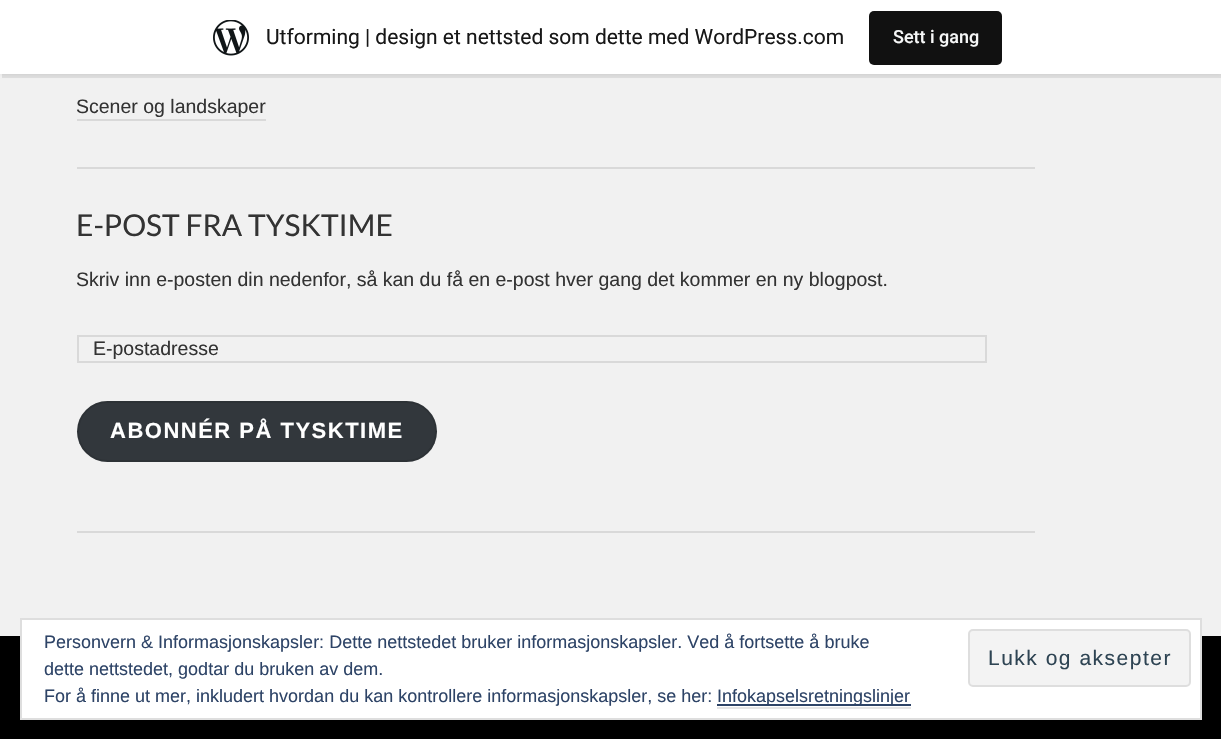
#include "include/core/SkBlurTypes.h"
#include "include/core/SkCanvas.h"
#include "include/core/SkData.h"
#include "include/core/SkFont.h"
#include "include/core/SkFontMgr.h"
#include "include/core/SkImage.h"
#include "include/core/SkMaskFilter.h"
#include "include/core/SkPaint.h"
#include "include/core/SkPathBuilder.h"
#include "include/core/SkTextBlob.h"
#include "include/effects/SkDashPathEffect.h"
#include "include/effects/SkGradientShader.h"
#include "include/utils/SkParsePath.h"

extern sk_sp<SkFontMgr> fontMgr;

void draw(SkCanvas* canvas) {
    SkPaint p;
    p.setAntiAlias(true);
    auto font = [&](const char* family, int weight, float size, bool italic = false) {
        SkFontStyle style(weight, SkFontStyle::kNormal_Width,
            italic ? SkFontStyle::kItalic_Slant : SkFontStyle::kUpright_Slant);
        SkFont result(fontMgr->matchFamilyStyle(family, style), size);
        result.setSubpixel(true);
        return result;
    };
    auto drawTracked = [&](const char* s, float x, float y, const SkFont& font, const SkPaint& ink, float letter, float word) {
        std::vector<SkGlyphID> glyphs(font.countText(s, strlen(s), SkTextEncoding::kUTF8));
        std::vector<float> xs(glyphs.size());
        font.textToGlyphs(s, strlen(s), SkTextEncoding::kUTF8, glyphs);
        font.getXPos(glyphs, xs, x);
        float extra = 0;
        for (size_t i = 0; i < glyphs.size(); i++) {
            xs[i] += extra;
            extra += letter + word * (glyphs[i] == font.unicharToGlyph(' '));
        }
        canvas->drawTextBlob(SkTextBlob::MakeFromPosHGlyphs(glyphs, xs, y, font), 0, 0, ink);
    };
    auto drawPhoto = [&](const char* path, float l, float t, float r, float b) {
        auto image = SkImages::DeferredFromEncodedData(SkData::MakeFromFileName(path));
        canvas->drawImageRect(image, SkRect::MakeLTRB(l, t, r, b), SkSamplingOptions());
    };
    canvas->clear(0xFFF1F1F1);
    p.setColor(0x0D000000);
    p.setMaskFilter(SkMaskFilter::MakeBlur(kNormal_SkBlurStyle, 1.5f));
    canvas->drawRect(SkRect::MakeLTRB(0, 2, 1221, 75), p);
    p.setMaskFilter(nullptr);
    p.setColor(0x14000000);
    canvas->drawPath(SkPathBuilder().moveTo(2, 74).lineTo(2, 78).lineTo(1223, 78).lineTo(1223, 5).lineTo(1221, 5).lineTo(1221, 74).close().detach(), p);
    p.setColor(0xFFFFFFFF);
    canvas->drawRect(SkRect::MakeLTRB(0, 0, 1221, 74), p);
    drawPhoto("media/1.png", 213, 20, 249, 56);
    auto font1 = font("Roboto", 400, 21);
    p.setColor(0xFF171717);
    canvas->drawString("Utforming | design et nettsted som dette med WordPress.com", 266, 44, font1, p);
    p.setColor(0xFF111111);
    canvas->drawRoundRect(SkRect::MakeLTRB(869, 11, 1002, 65), 5, 5, p);
    auto font2 = font("Roboto", 500, 18);
    p.setColor(0xFFF6F7F7);
    canvas->drawString("Sett i gang", 893, 43, font2, p);
    p.setColor(0xFFD9D9D9);
    canvas->drawRect(SkRect::MakeLTRB(77, 167, 1035, 169), p);
    auto font3 = font("Liberation Sans", 400, 19.5f);
    p.setColor(0xFF333333);
    canvas->drawString("Scener og landskaper", 76, 113, font3, p);
    p.setColor(0xFFD9D9D9);
    canvas->drawRect(SkRect::MakeLTRB(77, 119, 266, 121), p);
    canvas->drawRect(SkRect::MakeLTRB(77, 531, 1035, 533), p);
    auto font4 = font("Lato", 400, 30);
    p.setColor(0xFF333333);
    canvas->drawString("E-POST FRA TYSKTIME", 76, 236, font4, p);
    canvas->drawString("Skriv inn e-posten din nedenfor, så kan du få en e-post hver gang det kommer en ny blogpost.", 76, 286, font3, p);
    p.setStyle(SkPaint::kStroke_Style);
    p.setStrokeWidth(2);
    p.setColor(0xFFD9D9D9);
    canvas->drawRect(SkRect::MakeLTRB(78, 336, 986, 362), p);
    p.setStyle(SkPaint::kFill_Style);
    p.setColor(0xFF333333);
    canvas->drawString("E-postadresse", 93, 355, font3, p);
    p.setColor(0xFF32373C);
    canvas->drawRoundRect(SkRect::MakeLTRB(77, 401, 437, 462), 30.5f, 30.5f, p);
    p.setStyle(SkPaint::kStroke_Style);
    p.setColor(0x1A000000);
    canvas->drawRoundRect(SkRect::MakeLTRB(78, 402, 436, 461), 29.5f, 29.5f, p);
    auto font5 = font("Liberation Sans", 700, 22);
    p.setStyle(SkPaint::kFill_Style);
    p.setColor(0xFFFFFFFF);
    drawTracked("ABONNÉR PÅ TYSKTIME", 110, 438, font5, p, 1.5f, 0);
    p.setColor(0xFF000000);
    canvas->drawRect(SkRect::MakeLTRB(0, 636, 1221, 739), p);
    p.setColor(0xFFFFFFFF);
    canvas->drawRect(SkRect::MakeLTRB(21, 619, 1201, 719), p);
    p.setStyle(SkPaint::kStroke_Style);
    p.setColor(0xFFDEDEDE);
    canvas->drawRect(SkRect::MakeLTRB(21, 619, 1201, 719), p);
    auto font6 = font("Liberation Sans", 400, 18);
    p.setStyle(SkPaint::kFill_Style);
    p.setColor(0xFF2E4467);
    canvas->drawString("Personvern & Informasjonskapsler: Dette nettstedet bruker informasjonskapsler. Ved å fortsette å bruke", 44, 648, font6, p);
    canvas->drawString("dette nettstedet, godtar du bruken av dem.", 44, 675, font6, p);
    p.setColor(0xFFF3F3F3);
    canvas->drawRoundRect(SkRect::MakeLTRB(969, 630, 1190, 686), 4, 4, p);
    p.setStyle(SkPaint::kStroke_Style);
    p.setColor(0xFFDEDEDE);
    canvas->drawRoundRect(SkRect::MakeLTRB(969, 630, 1190, 686), 4, 4, p);
    auto font7 = font("Liberation Sans", 400, 21);
    p.setStyle(SkPaint::kFill_Style);
    p.setColor(0xFF2E4453);
    drawTracked("Lukk og aksepter", 988, 665, font7, p, 1.5f, 0);
    p.setColor(0xFF2E4467);
    canvas->drawString("For å finne ut mer, inkludert hvordan du kan kontrollere informasjonskapsler, se her:", 44, 702, font6, p);
    canvas->drawRect(SkRect::MakeLTRB(717, 704, 911, 706), p);
    canvas->drawString("Infokapselsretningslinjer", 717, 702, font6, p);
    p.setColor(0xFFE6E6E6);
    canvas->drawRect(SkRect::MakeLTRB(717, 707, 911, 709), p);
}
